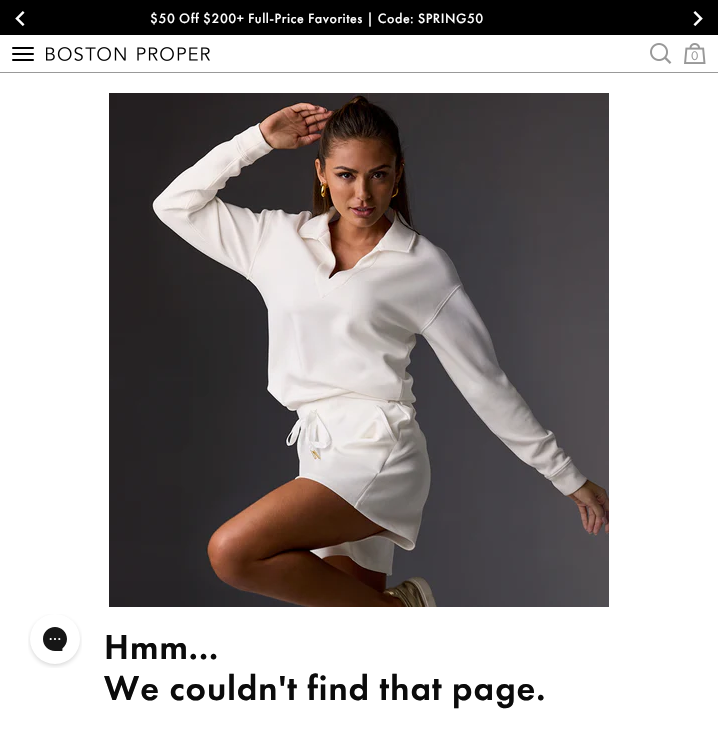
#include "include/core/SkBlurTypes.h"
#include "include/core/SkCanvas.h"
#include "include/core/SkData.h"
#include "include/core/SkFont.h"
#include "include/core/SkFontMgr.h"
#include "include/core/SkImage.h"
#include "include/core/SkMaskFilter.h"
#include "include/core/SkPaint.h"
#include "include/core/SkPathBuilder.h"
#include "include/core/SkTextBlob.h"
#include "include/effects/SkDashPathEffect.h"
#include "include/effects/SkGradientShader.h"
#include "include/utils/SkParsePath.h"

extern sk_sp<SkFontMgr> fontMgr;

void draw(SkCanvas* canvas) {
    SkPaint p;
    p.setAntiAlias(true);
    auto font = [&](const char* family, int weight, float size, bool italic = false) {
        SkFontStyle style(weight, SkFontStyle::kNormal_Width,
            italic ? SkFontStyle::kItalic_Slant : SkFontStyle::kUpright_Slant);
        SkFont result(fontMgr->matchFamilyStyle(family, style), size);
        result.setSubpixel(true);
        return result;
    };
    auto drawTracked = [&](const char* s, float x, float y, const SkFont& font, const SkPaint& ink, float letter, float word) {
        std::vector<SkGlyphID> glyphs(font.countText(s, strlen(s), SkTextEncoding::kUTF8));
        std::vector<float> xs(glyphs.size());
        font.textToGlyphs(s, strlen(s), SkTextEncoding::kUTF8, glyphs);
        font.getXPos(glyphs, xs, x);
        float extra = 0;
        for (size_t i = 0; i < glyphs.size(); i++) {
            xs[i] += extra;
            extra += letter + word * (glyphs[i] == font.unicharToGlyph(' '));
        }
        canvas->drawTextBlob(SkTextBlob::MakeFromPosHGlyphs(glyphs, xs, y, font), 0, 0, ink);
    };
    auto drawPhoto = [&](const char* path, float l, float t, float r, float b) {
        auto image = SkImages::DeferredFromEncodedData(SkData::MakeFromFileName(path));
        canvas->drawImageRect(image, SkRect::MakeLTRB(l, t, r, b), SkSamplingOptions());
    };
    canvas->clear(0xFFFFFFFF);
    drawPhoto("media/1.png", 28, 614, 82, 668);
    p.setColor(0xFF000000);
    canvas->drawRect(SkRect::MakeLTRB(0, 0, 718, 35), p);
    drawPhoto("media/2.png", 15, 11, 25, 26);
    drawPhoto("media/3.png", 693, 11, 703, 26);
    auto font1 = font("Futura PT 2", 500, 14);
    p.setColor(0xFFFFFFFF);
    drawTracked("$50 Off $200+ Full-Price Favorites | Code: SPRING50", 150, 23, font1, p, 0.5f, 0);
    p.setColor(0xFF999999);
    canvas->drawRect(SkRect::MakeLTRB(0, 72, 718, 73), p);
    p.setColor(0xFF000000);
    canvas->drawRoundRect(SkRect::MakeLTRB(12, 53, 34, 55), 1, 1, p);
    canvas->drawRoundRect(SkRect::MakeLTRB(12, 47, 34, 49), 1, 1, p);
    canvas->drawRoundRect(SkRect::MakeLTRB(12, 59, 34, 61), 1, 1, p);
    drawPhoto("media/4.png", 46, 47, 210, 61);
    drawPhoto("media/5.png", 650, 43, 672, 64);
    drawPhoto("media/6.png", 684, 43, 706, 64);
    auto font2 = font("Futura PT", 400, 13);
    p.setColor(0xFF999999);
    canvas->drawString("0", 691, 60, font2, p);
    drawPhoto("media/7.png", 109, 93, 609, 607);
    auto font3 = font("Futura PT", 500, 36);
    p.setColor(0xFF0B0B0B);
    drawTracked("Hmm...", 104, 659, font3, p, 1, 0);
    drawTracked("We couldn't find that page.", 104, 700, font3, p, 1, 0);
}
